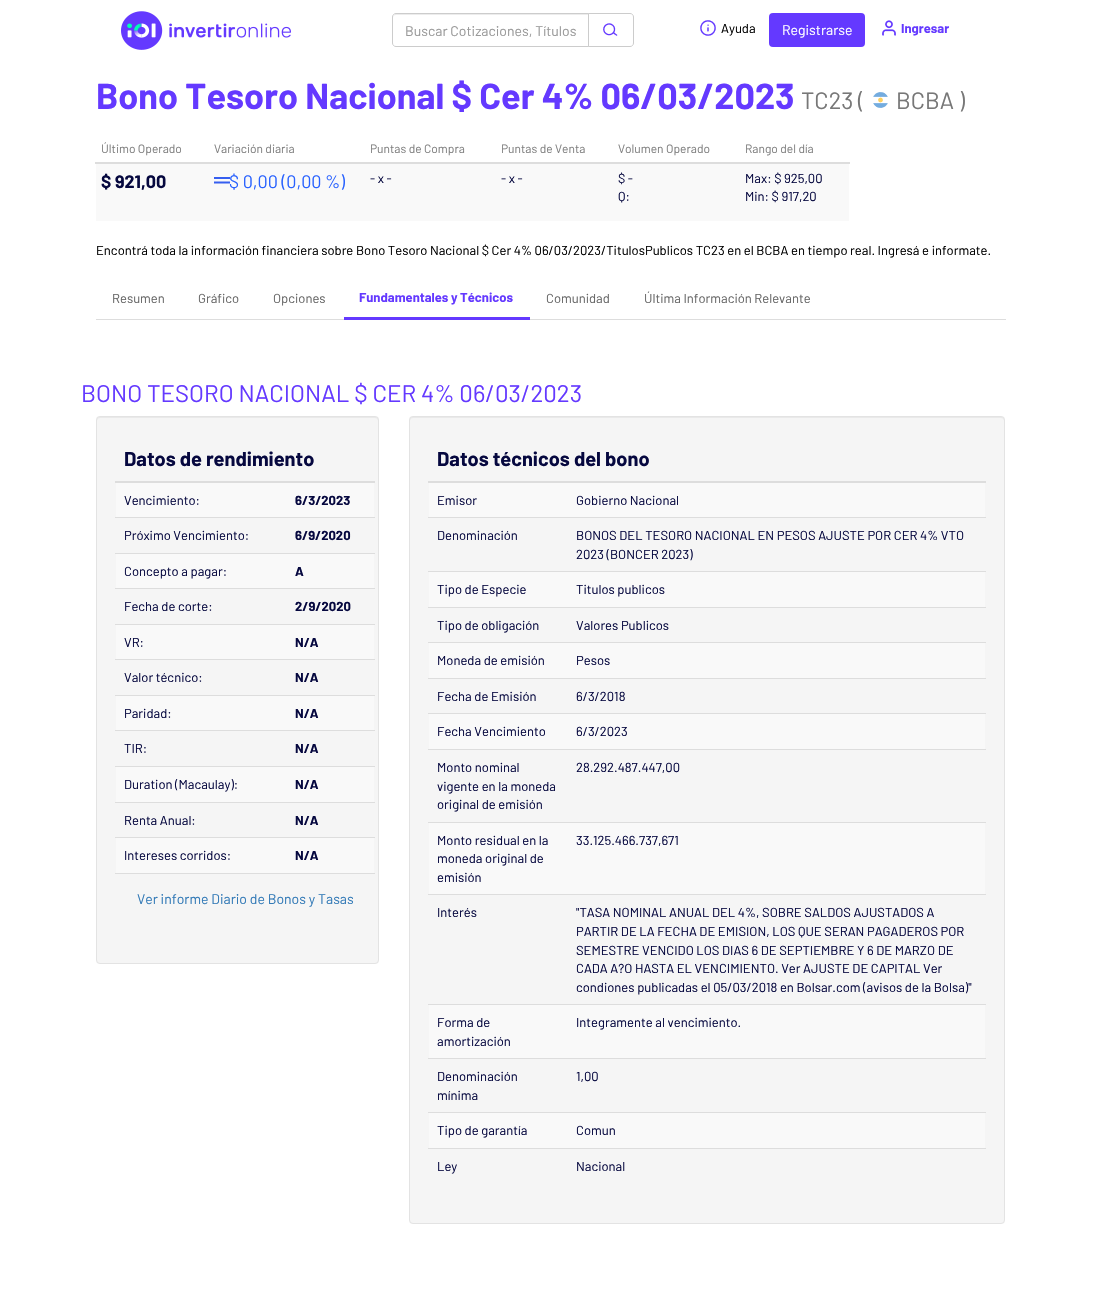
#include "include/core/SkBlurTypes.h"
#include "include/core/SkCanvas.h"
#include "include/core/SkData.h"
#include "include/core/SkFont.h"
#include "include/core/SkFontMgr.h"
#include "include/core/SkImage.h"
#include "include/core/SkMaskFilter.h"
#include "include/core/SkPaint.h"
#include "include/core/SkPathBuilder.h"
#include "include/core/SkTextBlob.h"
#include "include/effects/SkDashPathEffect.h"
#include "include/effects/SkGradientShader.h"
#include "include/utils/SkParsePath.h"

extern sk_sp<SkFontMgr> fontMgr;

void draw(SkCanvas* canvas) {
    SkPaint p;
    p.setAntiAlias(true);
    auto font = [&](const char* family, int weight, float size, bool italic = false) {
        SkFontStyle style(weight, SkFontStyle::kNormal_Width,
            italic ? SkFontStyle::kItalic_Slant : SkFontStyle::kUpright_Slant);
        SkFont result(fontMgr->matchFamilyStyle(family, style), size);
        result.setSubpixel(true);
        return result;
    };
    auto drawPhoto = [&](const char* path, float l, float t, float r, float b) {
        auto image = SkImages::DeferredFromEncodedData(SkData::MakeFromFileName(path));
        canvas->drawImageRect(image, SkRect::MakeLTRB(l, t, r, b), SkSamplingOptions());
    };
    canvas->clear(0xFFFFFFFF);
    drawPhoto("media/1.png", 121, 11, 291, 50);
    p.setColor(0xFFECECEC);
    canvas->drawPath(SkPathBuilder().moveTo(396, 15).lineTo(588, 15).lineTo(588, 14).lineTo(396, 14).cubicTo(394, 14, 393, 16, 393, 18).cubicTo(393, 16, 394, 15, 396, 15).close().detach(), p);
    p.setStyle(SkPaint::kStroke_Style);
    p.setStrokeWidth(1);
    p.setColor(0xFFCCCCCC);
    canvas->drawPath(SkPathBuilder().moveTo(396, 13.5f).lineTo(588.5f, 13.5f).lineTo(588.5f, 46.5f).lineTo(396, 46.5f).cubicTo(394, 46.5f, 392.5f, 45, 392.5f, 43).lineTo(392.5f, 17).cubicTo(392.5f, 15, 394, 13.5f, 396, 13.5f).close().detach(), p);
    auto font1 = font("Barlow", 400, 14);
    p.setStyle(SkPaint::kFill_Style);
    p.setColor(0xFF999999);
    canvas->drawString("Buscar Cotizaciones, Títulos", 405, 36, font1, p);
    p.setColor(0xFFFFFFFF);
    canvas->drawPath(SkPathBuilder().moveTo(588.5f, 13.5f).lineTo(630, 13.5f).cubicTo(632, 13.5f, 633.5f, 15, 633.5f, 17).lineTo(633.5f, 43).cubicTo(633.5f, 45, 632, 46.5f, 630, 46.5f).lineTo(588.5f, 46.5f).close().detach(), p);
    p.setStyle(SkPaint::kStroke_Style);
    p.setColor(0xFFCCCCCC);
    canvas->drawPath(SkPathBuilder().moveTo(588.5f, 13.5f).lineTo(630, 13.5f).cubicTo(632, 13.5f, 633.5f, 15, 633.5f, 17).lineTo(633.5f, 43).cubicTo(633.5f, 45, 632, 46.5f, 630, 46.5f).lineTo(588.5f, 46.5f).close().detach(), p);
    drawPhoto("media/2.png", 603, 23, 618, 36);
    drawPhoto("media/3.png", 700, 20, 716, 36);
    auto font2 = font("Barlow", 400, 13);
    p.setStyle(SkPaint::kFill_Style);
    p.setColor(0xFF000000);
    canvas->drawString("Ayuda", 721, 33, font2, p);
    p.setColor(0xFF6439FF);
    canvas->drawRoundRect(SkRect::MakeLTRB(769, 13, 865, 47), 4, 4, p);
    p.setColor(0xFFFFFFFF);
    canvas->drawString("Registrarse", 782, 35, font1, p);
    drawPhoto("media/4.png", 882, 20, 896, 36);
    auto font3 = font("Barlow", 700, 13);
    p.setColor(0xFF6439FF);
    canvas->drawString("Ingresar", 901, 33, font3, p);
    auto font4 = font("Barlow", 700, 36);
    canvas->drawString("Bono Tesoro Nacional $ Cer 4% 06/03/2023", 96, 109, font4, p);
    auto font5 = font("Barlow", 400, 23.5f);
    p.setColor(0xFF777777);
    canvas->drawString("TC23 (", 801, 109, font5, p);
    drawPhoto("media/5.png", 873, 92, 888, 108);
    canvas->drawString("BCBA )", 896, 109, font5, p);
    auto font6 = font("Barlow", 400, 12);
    p.setColor(0xFF808080);
    {
        const struct { const char* s; float x, y; } items[] = {
            {"Último Operado", 101, 153},
            {"Variación diaria", 214, 153},
            {"Puntas de Compra", 370, 153},
            {"Puntas de Venta", 501, 153},
            {"Volumen Operado", 618, 153},
        };
        for (auto [s, x, y] : items) {
            canvas->drawString(s, x, y, font6, p);
        }
    }
    p.setColor(0xFFDDDDDD);
    canvas->drawRect(SkRect::MakeLTRB(95, 162, 850, 164), p);
    p.setColor(0xFF808080);
    canvas->drawString("Rango del día", 745, 153, font6, p);
    p.setColor(0xFFF9F9F9);
    canvas->drawRect(SkRect::MakeLTRB(96, 164, 849, 221), p);
    auto font7 = font("Barlow", 700, 18);
    p.setColor(0xFF06083F);
    canvas->drawString("$ 921,00", 101, 188, font7, p);
    drawPhoto("media/6.png", 214, 177, 230, 184);
    auto font8 = font("Barlow", 400, 18);
    p.setColor(0xFF2962FF);
    canvas->drawString("$ 0,00 (0,00 %)", 229, 188, font8, p);
    p.setColor(0xFF06083F);
    {
        const struct { const char* s; float x, y; } items[] = {
            {"- x -", 370, 183},
            {"- x -", 501, 183},
            {"$ -", 618, 183},
            {"Q:", 618, 201},
            {"Max: $ 925,00", 745, 183},
            {"Min: $ 917,20", 745, 201},
        };
        for (auto [s, x, y] : items) {
            canvas->drawString(s, x, y, font2, p);
        }
    }
    p.setColor(0xFF000000);
    canvas->drawString("Encontrá toda la información financiera sobre Bono Tesoro Nacional $ Cer 4% 06/03/2023/TitulosPublicos TC23 en el BCBA en tiempo real. Ingresá e informate.", 96, 255, font2, p);
    p.setColor(0xFFDDDDDD);
    canvas->drawRect(SkRect::MakeLTRB(96, 319, 1006, 320), p);
    p.setColor(0xFF666666);
    {
        const struct { const char* s; float x, y; } items[] = {
            {"Resumen", 112, 303},
            {"Gráfico", 198, 303},
            {"Opciones", 273, 303},
        };
        for (auto [s, x, y] : items) {
            canvas->drawString(s, x, y, font2, p);
        }
    }
    p.setColor(0xFF6439FF);
    canvas->drawRect(SkRect::MakeLTRB(344, 317, 530, 320), p);
    canvas->drawString("Fundamentales y Técnicos", 359, 302, font3, p);
    p.setColor(0xFF666666);
    canvas->drawString("Comunidad", 546, 303, font2, p);
    canvas->drawString("Última Información Relevante", 644, 303, font2, p);
    auto font9 = font("Barlow", 400, 24);
    p.setColor(0xFF6439FF);
    canvas->drawString("BONO TESORO NACIONAL $ CER 4% 06/03/2023", 81, 402, font9, p);
    p.setColor(0xFFF5F5F5);
    canvas->drawRoundRect(SkRect::MakeLTRB(96, 416, 379, 964), 4, 4, p);
    p.setColor(0xFFE9E9E9);
    canvas->drawPath(SkPathBuilder().moveTo(100, 418).lineTo(375, 418).cubicTo(377, 418, 378, 419, 378, 421).lineTo(378, 420).cubicTo(378, 418, 377, 417, 375, 417).lineTo(100, 417).cubicTo(98, 417, 97, 418, 97, 420).lineTo(97, 421).cubicTo(97, 419, 98, 418, 100, 418).close().detach(), p);
    p.setStyle(SkPaint::kStroke_Style);
    p.setColor(0xFFE3E3E3);
    canvas->drawRoundRect(SkRect::MakeLTRB(96.5f, 416.5f, 378.5f, 963.5f), 3.5f, 3.5f, p);
    p.setStyle(SkPaint::kFill_Style);
    p.setColor(0xFFDDDDDD);
    canvas->drawRect(SkRect::MakeLTRB(115, 481, 375, 483), p);
    auto font10 = font("Barlow", 700, 20);
    p.setColor(0xFF06083F);
    canvas->drawString("Datos de rendimiento", 124, 466, font10, p);
    p.setColor(0xFFF9F9F9);
    canvas->drawRect(SkRect::MakeLTRB(116, 483, 374, 517), p);
    p.setColor(0xFF06083F);
    canvas->drawString("Vencimiento:", 124, 505, font2, p);
    canvas->drawString("6/3/2023", 295, 505, font3, p);
    canvas->drawString("Próximo Vencimiento:", 124, 540, font2, p);
    p.setColor(0xFFDDDDDD);
    canvas->drawRect(SkRect::MakeLTRB(115, 517, 375, 518), p);
    p.setColor(0xFF06083F);
    canvas->drawString("6/9/2020", 295, 540, font3, p);
    p.setColor(0xFFF9F9F9);
    canvas->drawRect(SkRect::MakeLTRB(116, 554, 374, 588), p);
    p.setColor(0xFF06083F);
    canvas->drawString("Concepto a pagar:", 124, 576, font2, p);
    p.setColor(0xFFDDDDDD);
    canvas->drawRect(SkRect::MakeLTRB(115, 553, 375, 554), p);
    p.setColor(0xFF06083F);
    canvas->drawString("A", 295, 576, font3, p);
    canvas->drawString("Fecha de corte:", 124, 611, font2, p);
    p.setColor(0xFFDDDDDD);
    canvas->drawRect(SkRect::MakeLTRB(115, 588, 375, 589), p);
    p.setColor(0xFF06083F);
    canvas->drawString("2/9/2020", 295, 611, font3, p);
    p.setColor(0xFFF9F9F9);
    canvas->drawRect(SkRect::MakeLTRB(116, 625, 374, 659), p);
    p.setColor(0xFF06083F);
    canvas->drawString("VR:", 124, 647, font2, p);
    p.setColor(0xFFDDDDDD);
    canvas->drawRect(SkRect::MakeLTRB(115, 624, 375, 625), p);
    p.setColor(0xFF06083F);
    canvas->drawString("N/A", 295, 647, font3, p);
    canvas->drawString("Valor técnico:", 124, 682, font2, p);
    p.setColor(0xFFDDDDDD);
    canvas->drawRect(SkRect::MakeLTRB(115, 659, 375, 660), p);
    p.setColor(0xFF06083F);
    canvas->drawString("N/A", 295, 682, font3, p);
    p.setColor(0xFFF9F9F9);
    canvas->drawRect(SkRect::MakeLTRB(116, 696, 374, 730), p);
    p.setColor(0xFF06083F);
    canvas->drawString("Paridad:", 124, 718, font2, p);
    p.setColor(0xFFDDDDDD);
    canvas->drawRect(SkRect::MakeLTRB(115, 695, 375, 696), p);
    p.setColor(0xFF06083F);
    canvas->drawString("N/A", 295, 718, font3, p);
    canvas->drawString("TIR:", 124, 753, font2, p);
    p.setColor(0xFFDDDDDD);
    canvas->drawRect(SkRect::MakeLTRB(115, 730, 375, 731), p);
    p.setColor(0xFF06083F);
    canvas->drawString("N/A", 295, 753, font3, p);
    p.setColor(0xFFF9F9F9);
    canvas->drawRect(SkRect::MakeLTRB(116, 767, 374, 802), p);
    p.setColor(0xFF06083F);
    canvas->drawString("Duration (Macaulay):", 124, 789, font2, p);
    p.setColor(0xFFDDDDDD);
    canvas->drawRect(SkRect::MakeLTRB(115, 766, 375, 767), p);
    p.setColor(0xFF06083F);
    canvas->drawString("N/A", 295, 789, font3, p);
    canvas->drawString("Renta Anual:", 124, 825, font2, p);
    p.setColor(0xFFDDDDDD);
    canvas->drawRect(SkRect::MakeLTRB(115, 802, 375, 803), p);
    p.setColor(0xFF06083F);
    canvas->drawString("N/A", 295, 825, font3, p);
    p.setColor(0xFFF9F9F9);
    canvas->drawRect(SkRect::MakeLTRB(116, 838, 374, 873), p);
    p.setColor(0xFF06083F);
    canvas->drawString("Intereses corridos:", 124, 860, font2, p);
    p.setColor(0xFFDDDDDD);
    canvas->drawRect(SkRect::MakeLTRB(115, 837, 375, 838), p);
    p.setColor(0xFF06083F);
    canvas->drawString("N/A", 295, 860, font3, p);
    p.setColor(0xFFDDDDDD);
    canvas->drawRect(SkRect::MakeLTRB(115, 873, 375, 874), p);
    p.setColor(0xFF337AB7);
    canvas->drawString("Ver informe Diario de Bonos y Tasas", 137, 904, font1, p);
    p.setColor(0xFFF5F5F5);
    canvas->drawRoundRect(SkRect::MakeLTRB(409, 416, 1005, 1224), 4, 4, p);
    p.setColor(0xFFE9E9E9);
    canvas->drawPath(SkPathBuilder().moveTo(413, 418).lineTo(1001, 418).cubicTo(1003, 418, 1004, 419, 1004, 421).lineTo(1004, 420).cubicTo(1004, 418, 1003, 417, 1001, 417).lineTo(413, 417).cubicTo(411, 417, 410, 418, 410, 420).lineTo(410, 421).cubicTo(410, 419, 411, 418, 413, 418).close().detach(), p);
    p.setStyle(SkPaint::kStroke_Style);
    p.setColor(0xFFE3E3E3);
    canvas->drawRoundRect(SkRect::MakeLTRB(409.5f, 416.5f, 1004.5f, 1223.5f), 3.5f, 3.5f, p);
    p.setStyle(SkPaint::kFill_Style);
    p.setColor(0xFFDDDDDD);
    canvas->drawRect(SkRect::MakeLTRB(428, 481, 986, 483), p);
    p.setColor(0xFF06083F);
    canvas->drawString("Datos técnicos del bono", 437, 466, font10, p);
    p.setColor(0xFFF9F9F9);
    canvas->drawRect(SkRect::MakeLTRB(429, 483, 985, 517), p);
    p.setColor(0xFF06083F);
    {
        const struct { const char* s; float x, y; } items[] = {
            {"Emisor", 437, 505},
            {"Gobierno Nacional", 576, 505},
            {"Denominación", 437, 540},
        };
        for (auto [s, x, y] : items) {
            canvas->drawString(s, x, y, font2, p);
        }
    }
    p.setColor(0xFFDDDDDD);
    canvas->drawRect(SkRect::MakeLTRB(428, 517, 986, 518), p);
    p.setColor(0xFF06083F);
    canvas->drawString("BONOS DEL TESORO NACIONAL EN PESOS AJUSTE POR CER 4% VTO", 576, 540, font2, p);
    canvas->drawString("2023 (BONCER 2023)", 576, 559, font2, p);
    p.setColor(0xFFF9F9F9);
    canvas->drawRect(SkRect::MakeLTRB(429, 572, 985, 607), p);
    p.setColor(0xFF06083F);
    canvas->drawString("Tipo de Especie", 437, 594, font2, p);
    p.setColor(0xFFDDDDDD);
    canvas->drawRect(SkRect::MakeLTRB(428, 571, 986, 572), p);
    p.setColor(0xFF06083F);
    canvas->drawString("Titulos publicos", 576, 594, font2, p);
    canvas->drawString("Tipo de obligación", 437, 630, font2, p);
    p.setColor(0xFFDDDDDD);
    canvas->drawRect(SkRect::MakeLTRB(428, 607, 986, 608), p);
    p.setColor(0xFF06083F);
    canvas->drawString("Valores Publicos", 576, 630, font2, p);
    p.setColor(0xFFF9F9F9);
    canvas->drawRect(SkRect::MakeLTRB(429, 643, 985, 678), p);
    p.setColor(0xFF06083F);
    canvas->drawString("Moneda de emisión", 437, 665, font2, p);
    p.setColor(0xFFDDDDDD);
    canvas->drawRect(SkRect::MakeLTRB(428, 642, 986, 643), p);
    p.setColor(0xFF06083F);
    canvas->drawString("Pesos", 576, 665, font2, p);
    canvas->drawString("Fecha de Emisión", 437, 701, font2, p);
    p.setColor(0xFFDDDDDD);
    canvas->drawRect(SkRect::MakeLTRB(428, 678, 986, 679), p);
    p.setColor(0xFF06083F);
    canvas->drawString("6/3/2018", 576, 701, font2, p);
    p.setColor(0xFFF9F9F9);
    canvas->drawRect(SkRect::MakeLTRB(429, 714, 985, 749), p);
    p.setColor(0xFF06083F);
    canvas->drawString("Fecha Vencimiento", 437, 736, font2, p);
    p.setColor(0xFFDDDDDD);
    canvas->drawRect(SkRect::MakeLTRB(428, 713, 986, 714), p);
    p.setColor(0xFF06083F);
    {
        const struct { const char* s; float x, y; } items[] = {
            {"6/3/2023", 576, 736},
            {"Monto nominal", 437, 772},
            {"vigente en la moneda", 437, 791},
            {"original de emisión", 437, 809},
        };
        for (auto [s, x, y] : items) {
            canvas->drawString(s, x, y, font2, p);
        }
    }
    p.setColor(0xFFDDDDDD);
    canvas->drawRect(SkRect::MakeLTRB(428, 749, 986, 750), p);
    p.setColor(0xFF06083F);
    canvas->drawString("28.292.487.447,00", 576, 772, font2, p);
    p.setColor(0xFFF9F9F9);
    canvas->drawRect(SkRect::MakeLTRB(429, 823, 985, 894), p);
    p.setColor(0xFF06083F);
    {
        const struct { const char* s; float x, y; } items[] = {
            {"Monto residual en la", 437, 845},
            {"moneda original de", 437, 863},
            {"emisión", 437, 882},
        };
        for (auto [s, x, y] : items) {
            canvas->drawString(s, x, y, font2, p);
        }
    }
    p.setColor(0xFFDDDDDD);
    canvas->drawRect(SkRect::MakeLTRB(428, 822, 986, 823), p);
    p.setColor(0xFF06083F);
    canvas->drawString("33.125.466.737,671", 576, 845, font2, p);
    canvas->drawString("Interés", 437, 917, font2, p);
    p.setColor(0xFFDDDDDD);
    canvas->drawRect(SkRect::MakeLTRB(428, 894, 986, 895), p);
    p.setColor(0xFF06083F);
    {
        const struct { const char* s; float x, y; } items[] = {
            {"\"TASA NOMINAL ANUAL DEL 4%, SOBRE SALDOS AJUSTADOS A", 576, 917},
            {"PARTIR DE LA FECHA DE EMISION, LOS QUE SERAN PAGADEROS POR", 576, 936},
            {"SEMESTRE VENCIDO LOS DIAS 6 DE SEPTIEMBRE Y 6 DE MARZO DE", 576, 955},
            {"CADA A?O HASTA EL VENCIMIENTO. Ver AJUSTE DE CAPITAL Ver", 576, 973},
            {"condiones publicadas el 05/03/2018 en Bolsar.com (avisos de la Bolsa)\"", 576, 992},
        };
        for (auto [s, x, y] : items) {
            canvas->drawString(s, x, y, font2, p);
        }
    }
    p.setColor(0xFFF9F9F9);
    canvas->drawRect(SkRect::MakeLTRB(429, 1005, 985, 1058), p);
    p.setColor(0xFF06083F);
    canvas->drawString("Forma de", 437, 1027, font2, p);
    canvas->drawString("amortización", 437, 1046, font2, p);
    p.setColor(0xFFDDDDDD);
    canvas->drawRect(SkRect::MakeLTRB(428, 1004, 986, 1005), p);
    p.setColor(0xFF06083F);
    {
        const struct { const char* s; float x, y; } items[] = {
            {"Integramente al vencimiento.", 576, 1027},
            {"Denominación", 437, 1081},
            {"mínima", 437, 1100},
        };
        for (auto [s, x, y] : items) {
            canvas->drawString(s, x, y, font2, p);
        }
    }
    p.setColor(0xFFDDDDDD);
    canvas->drawRect(SkRect::MakeLTRB(428, 1058, 986, 1059), p);
    p.setColor(0xFF06083F);
    canvas->drawString("1,00", 576, 1081, font2, p);
    p.setColor(0xFFF9F9F9);
    canvas->drawRect(SkRect::MakeLTRB(429, 1113, 985, 1148), p);
    p.setColor(0xFF06083F);
    canvas->drawString("Tipo de garantía", 437, 1135, font2, p);
    p.setColor(0xFFDDDDDD);
    canvas->drawRect(SkRect::MakeLTRB(428, 1112, 986, 1113), p);
    p.setColor(0xFF06083F);
    canvas->drawString("Comun", 576, 1135, font2, p);
    canvas->drawString("Ley", 437, 1171, font2, p);
    p.setColor(0xFFDDDDDD);
    canvas->drawRect(SkRect::MakeLTRB(428, 1148, 986, 1149), p);
    p.setColor(0xFF06083F);
    canvas->drawString("Nacional", 576, 1171, font2, p);
}
